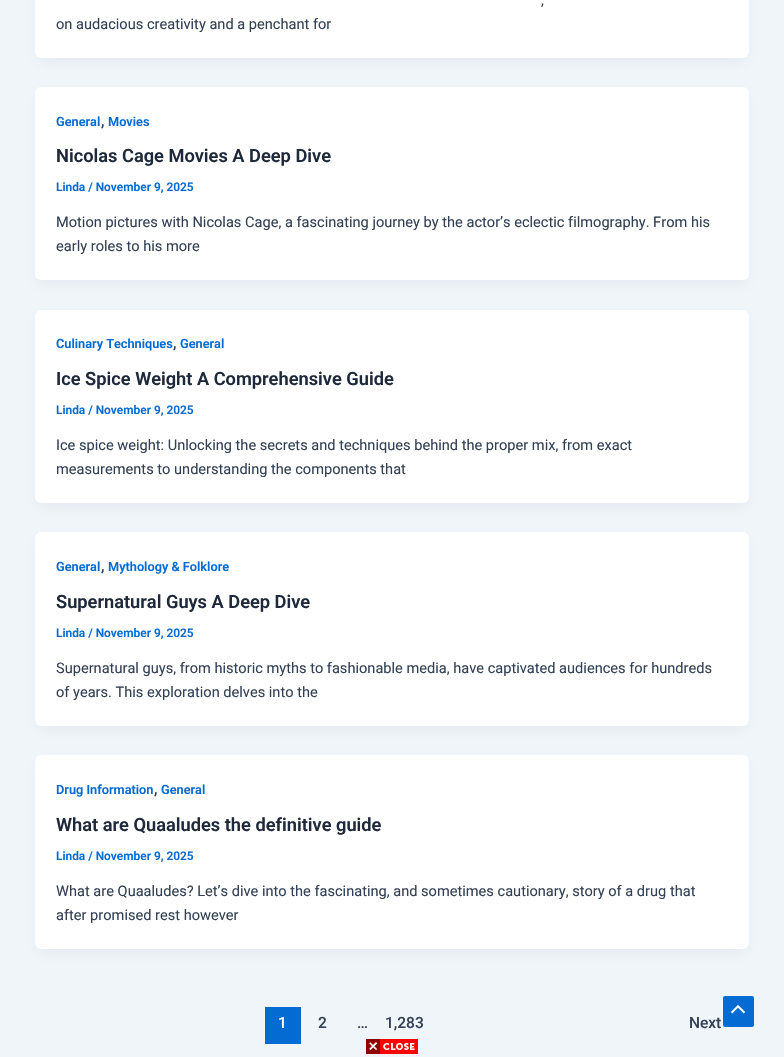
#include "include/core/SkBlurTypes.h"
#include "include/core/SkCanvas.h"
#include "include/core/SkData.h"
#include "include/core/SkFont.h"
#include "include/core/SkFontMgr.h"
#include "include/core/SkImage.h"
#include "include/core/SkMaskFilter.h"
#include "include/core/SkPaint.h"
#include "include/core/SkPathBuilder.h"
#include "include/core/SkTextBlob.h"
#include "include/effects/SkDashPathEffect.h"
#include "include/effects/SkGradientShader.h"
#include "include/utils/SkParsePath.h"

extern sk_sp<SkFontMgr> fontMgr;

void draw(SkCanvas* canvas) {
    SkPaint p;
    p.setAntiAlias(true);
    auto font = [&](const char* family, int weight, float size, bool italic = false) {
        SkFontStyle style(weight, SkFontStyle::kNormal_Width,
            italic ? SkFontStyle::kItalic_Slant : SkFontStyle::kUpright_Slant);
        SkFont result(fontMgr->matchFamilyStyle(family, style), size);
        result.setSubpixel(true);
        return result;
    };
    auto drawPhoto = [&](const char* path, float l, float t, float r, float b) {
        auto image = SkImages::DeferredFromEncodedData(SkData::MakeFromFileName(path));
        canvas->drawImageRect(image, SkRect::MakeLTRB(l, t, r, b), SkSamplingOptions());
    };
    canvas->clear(0xFFF0F5FA);
    p.setColor(0x0D101828);
    p.setMaskFilter(SkMaskFilter::MakeBlur(kNormal_SkBlurStyle, 7.5f));
    canvas->drawRoundRect(SkRect::MakeLTRB(37, -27, 747, 62), 4, 4, p);
    p.setMaskFilter(nullptr);
    p.setColor(0xFFFFFFFF);
    canvas->drawRoundRect(SkRect::MakeLTRB(35, -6, 749, 58), 6, 6, p);
    auto font1 = font("Roboto", 400, 14.6f);
    p.setColor(0xFF334155);
    canvas->drawString(",", 541, 5, font1, p);
    canvas->drawString("on audacious creativity and a penchant for", 56, 29, font1, p);
    p.setColor(0x0D101828);
    p.setMaskFilter(SkMaskFilter::MakeBlur(kNormal_SkBlurStyle, 7.5f));
    canvas->drawRoundRect(SkRect::MakeLTRB(37, 95, 747, 284), 4, 4, p);
    p.setMaskFilter(nullptr);
    p.setColor(0xFFFFFFFF);
    canvas->drawRoundRect(SkRect::MakeLTRB(35, 87, 749, 280), 6, 6, p);
    auto font2 = font("Roboto", 600, 12.75f);
    p.setColor(0xFF046BD2);
    canvas->drawString("General", 56, 126, font2, p);
    auto font3 = font("Roboto", 600, 14.6f);
    p.setColor(0xFF334155);
    canvas->drawString(",", 101, 126, font3, p);
    p.setColor(0xFF046BD2);
    canvas->drawString("Movies", 108, 126, font2, p);
    auto font4 = font("Roboto", 600, 18.25f);
    p.setColor(0xFF1E293B);
    canvas->drawString("Nicolas Cage Movies A Deep Dive", 56, 162, font4, p);
    auto font5 = font("Roboto", 600, 11.9f);
    p.setColor(0xFF046BD2);
    canvas->drawString("Linda / November 9, 2025", 56, 191, font5, p);
    p.setColor(0xFF334155);
    canvas->drawString("Motion pictures with Nicolas Cage, a fascinating journey by the actor’s eclectic filmography. From his", 56, 227, font1, p);
    canvas->drawString("early roles to his more", 56, 251, font1, p);
    p.setColor(0x0D101828);
    p.setMaskFilter(SkMaskFilter::MakeBlur(kNormal_SkBlurStyle, 7.5f));
    canvas->drawRoundRect(SkRect::MakeLTRB(37, 318, 747, 507), 4, 4, p);
    p.setMaskFilter(nullptr);
    p.setColor(0xFFFFFFFF);
    canvas->drawRoundRect(SkRect::MakeLTRB(35, 310, 749, 503), 6, 6, p);
    p.setColor(0xFF046BD2);
    canvas->drawString("Culinary Techniques", 56, 348, font2, p);
    p.setColor(0xFF334155);
    canvas->drawString(",", 173, 348, font3, p);
    p.setColor(0xFF046BD2);
    canvas->drawString("General", 180, 348, font2, p);
    p.setColor(0xFF1E293B);
    canvas->drawString("Ice Spice Weight A Comprehensive Guide", 56, 385, font4, p);
    p.setColor(0xFF046BD2);
    canvas->drawString("Linda / November 9, 2025", 56, 414, font5, p);
    p.setColor(0xFF334155);
    canvas->drawString("Ice spice weight: Unlocking the secrets and techniques behind the proper mix, from exact", 56, 450, font1, p);
    canvas->drawString("measurements to understanding the components that", 56, 474, font1, p);
    p.setColor(0x0D101828);
    p.setMaskFilter(SkMaskFilter::MakeBlur(kNormal_SkBlurStyle, 7.5f));
    canvas->drawRoundRect(SkRect::MakeLTRB(37, 540, 747, 730), 4, 4, p);
    p.setMaskFilter(nullptr);
    p.setColor(0xFFFFFFFF);
    canvas->drawRoundRect(SkRect::MakeLTRB(35, 532, 749, 726), 6, 6, p);
    p.setColor(0xFF046BD2);
    canvas->drawString("General", 56, 571, font2, p);
    p.setColor(0xFF334155);
    canvas->drawString(",", 101, 571, font3, p);
    p.setColor(0xFF046BD2);
    canvas->drawString("Mythology & Folklore", 108, 571, font2, p);
    p.setColor(0xFF1E293B);
    canvas->drawString("Supernatural Guys A Deep Dive", 56, 608, font4, p);
    p.setColor(0xFF046BD2);
    canvas->drawString("Linda / November 9, 2025", 56, 637, font5, p);
    p.setColor(0xFF334155);
    canvas->drawString("Supernatural guys, from historic myths to fashionable media, have captivated audiences for hundreds", 56, 673, font1, p);
    canvas->drawString("of years. This exploration delves into the", 56, 697, font1, p);
    p.setColor(0x0D101828);
    p.setMaskFilter(SkMaskFilter::MakeBlur(kNormal_SkBlurStyle, 7.5f));
    canvas->drawRoundRect(SkRect::MakeLTRB(37, 763, 747, 953), 4, 4, p);
    p.setMaskFilter(nullptr);
    p.setColor(0xFFFFFFFF);
    canvas->drawRoundRect(SkRect::MakeLTRB(35, 755, 749, 949), 6, 6, p);
    p.setColor(0xFF046BD2);
    canvas->drawString("Drug Information", 56, 794, font2, p);
    p.setColor(0xFF334155);
    canvas->drawString(",", 154, 794, font3, p);
    p.setColor(0xFF046BD2);
    canvas->drawString("General", 161, 794, font2, p);
    p.setColor(0xFF1E293B);
    canvas->drawString("What are Quaaludes the definitive guide", 56, 831, font4, p);
    p.setColor(0xFF046BD2);
    canvas->drawString("Linda / November 9, 2025", 56, 860, font5, p);
    p.setColor(0xFF334155);
    canvas->drawString("What are Quaaludes? Let’s dive into the fascinating, and sometimes cautionary, story of a drug that", 56, 896, font1, p);
    canvas->drawString("after promised rest however", 56, 920, font1, p);
    p.setColor(0xFF046BD2);
    canvas->drawRect(SkRect::MakeLTRB(265, 1007, 301, 1044), p);
    auto font6 = font("Roboto", 500, 15.5f);
    p.setColor(0xFFFFFFFF);
    canvas->drawString("1", 278, 1028, font6, p);
    p.setColor(0xFF334155);
    {
        const struct { const char* s; float x, y; } items[] = {
            {"2", 318, 1028},
            {"…", 357, 1028},
            {"1,283", 385, 1028},
            {"Next", 689, 1028},
        };
        for (auto [s, x, y] : items) {
            canvas->drawString(s, x, y, font6, p);
        }
    }
    p.setColor(0xFF046BD2);
    canvas->drawRoundRect(SkRect::MakeLTRB(723, 996, 754, 1027), 2, 2, p);
    drawPhoto("media/1.png", 731, 1005, 746, 1014);
    drawPhoto("media/2.png", 366, 1039, 418, 1054);
}
